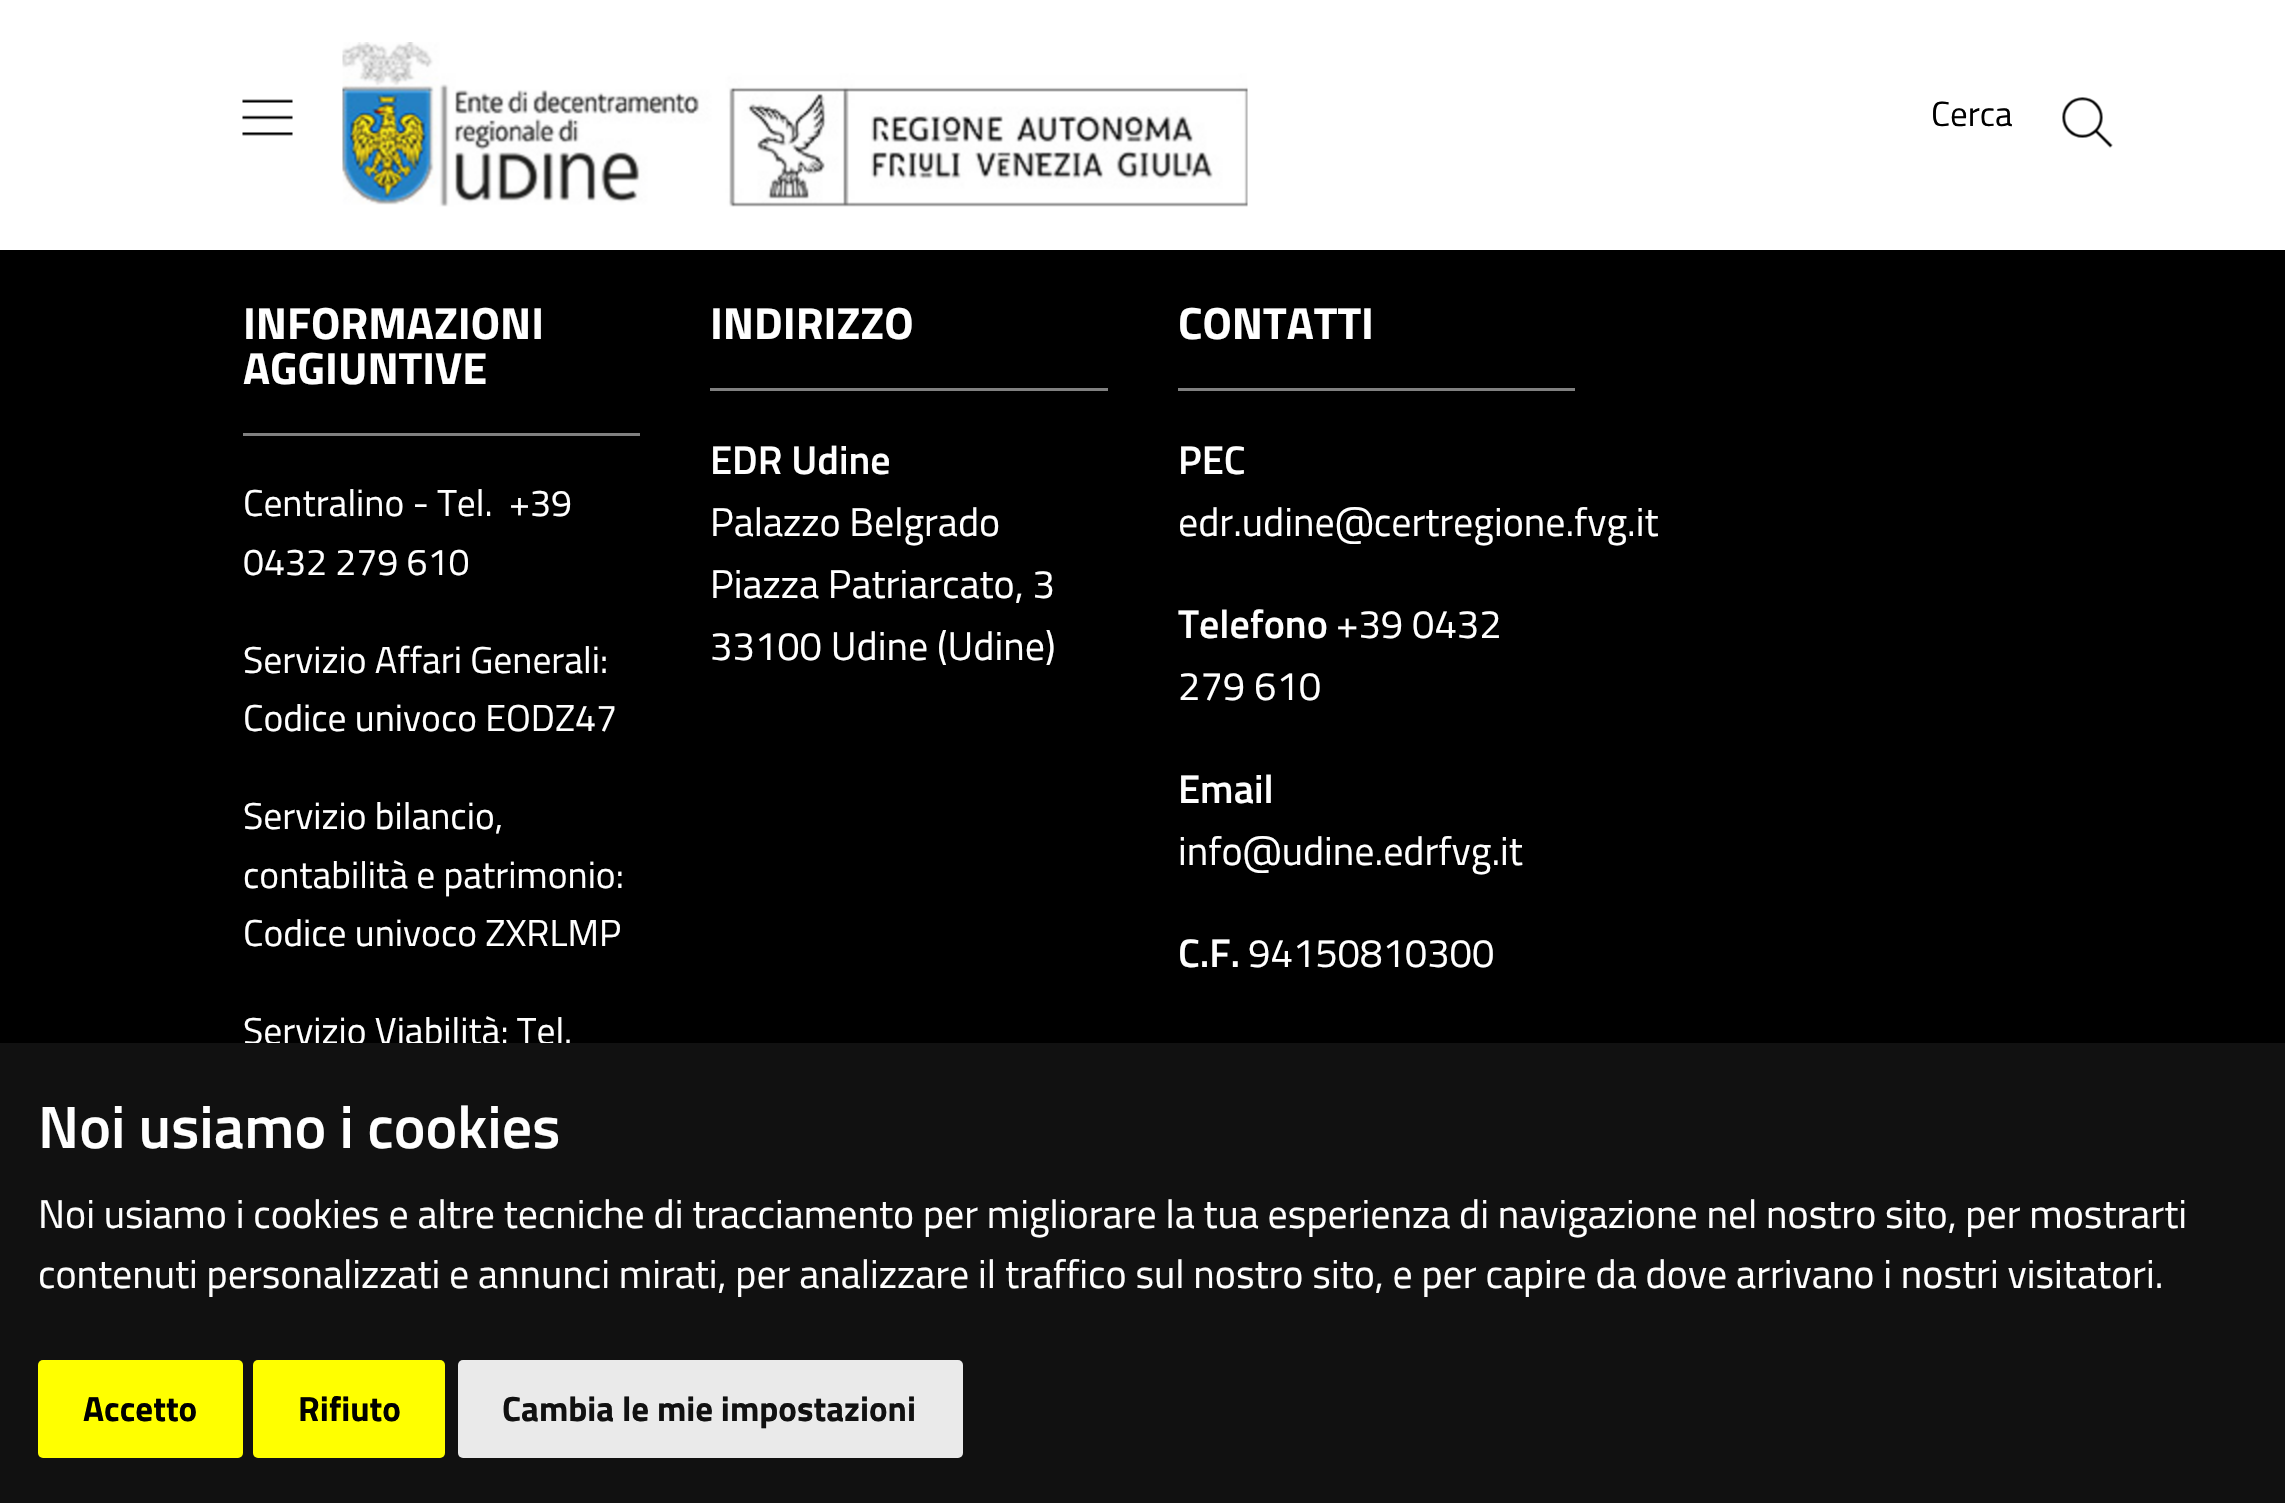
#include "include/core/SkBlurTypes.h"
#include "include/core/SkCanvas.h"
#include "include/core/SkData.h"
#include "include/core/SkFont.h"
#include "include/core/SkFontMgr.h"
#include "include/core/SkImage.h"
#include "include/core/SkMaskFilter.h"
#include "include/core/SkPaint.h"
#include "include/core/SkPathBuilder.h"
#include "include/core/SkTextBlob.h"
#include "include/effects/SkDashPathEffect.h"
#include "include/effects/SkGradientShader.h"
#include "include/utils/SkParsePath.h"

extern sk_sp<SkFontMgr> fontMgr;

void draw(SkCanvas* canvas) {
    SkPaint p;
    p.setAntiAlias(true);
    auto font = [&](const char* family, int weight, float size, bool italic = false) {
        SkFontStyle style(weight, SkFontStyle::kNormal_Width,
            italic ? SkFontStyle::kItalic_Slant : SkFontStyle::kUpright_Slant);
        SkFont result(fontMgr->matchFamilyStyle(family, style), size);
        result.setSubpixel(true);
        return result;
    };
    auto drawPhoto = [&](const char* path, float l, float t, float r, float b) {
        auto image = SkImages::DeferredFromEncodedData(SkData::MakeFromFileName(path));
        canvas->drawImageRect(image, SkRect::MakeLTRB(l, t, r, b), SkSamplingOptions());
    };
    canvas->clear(0xFF000000);
    p.setColor(0xFFFFFFFF);
    canvas->drawRect(SkRect::MakeLTRB(0, 0, 2285, 250), p);
    drawPhoto("media/1.png", 242, 99, 293, 136);
    drawPhoto("media/2.png", 342, 42, 1248, 207);
    auto font1 = font("Titillium Web", 400, 35);
    p.setColor(0xFF000000);
    canvas->drawString("Cerca", 1931, 126, font1, p);
    drawPhoto("media/3.png", 2062, 97, 2113, 148);
    p.setColor(0xFF808080);
    canvas->drawRect(SkRect::MakeLTRB(243, 433, 640, 436), p);
    auto font2 = font("Titillium Web", 700, 45);
    p.setColor(0xFFFFFFFF);
    canvas->drawString("INFORMAZIONI", 243, 339, font2, p);
    canvas->drawString("AGGIUNTIVE", 243, 384, font2, p);
    auto font3 = font("Titillium Web", 400, 37.5f);
    {
        const struct { const char* s; float x, y; } items[] = {
            {"Centralino - Tel.  +39", 243, 516},
            {"0432 279 610", 243, 575},
            {"Servizio Affari Generali:", 243, 673},
            {"Codice univoco EODZ47", 243, 731},
            {"Servizio bilancio,", 243, 829},
            {"contabilità e patrimonio:", 243, 888},
            {"Codice univoco ZXRLMP", 243, 946},
            {"Servizio Viabilità: Tel.", 243, 1044},
        };
        for (auto [s, x, y] : items) {
            canvas->drawString(s, x, y, font3, p);
        }
    }
    p.setColor(0xFF808080);
    canvas->drawRect(SkRect::MakeLTRB(710, 388, 1108, 391), p);
    p.setColor(0xFFFFFFFF);
    canvas->drawString("INDIRIZZO", 710, 339, font2, p);
    auto font4 = font("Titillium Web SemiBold", 600, 40);
    canvas->drawString("EDR Udine", 710, 474, font4, p);
    auto font5 = font("Titillium Web", 400, 40);
    {
        const struct { const char* s; float x, y; } items[] = {
            {"Palazzo Belgrado", 710, 536},
            {"Piazza Patriarcato, 3", 710, 598},
            {"33100 Udine (Udine)", 710, 660},
        };
        for (auto [s, x, y] : items) {
            canvas->drawString(s, x, y, font5, p);
        }
    }
    p.setColor(0xFF808080);
    canvas->drawRect(SkRect::MakeLTRB(1178, 388, 1575, 391), p);
    p.setColor(0xFFFFFFFF);
    canvas->drawString("CONTATTI", 1178, 339, font2, p);
    canvas->drawString("PEC", 1178, 474, font4, p);
    canvas->drawString("edr.udine@certregione.fvg.it", 1178, 536, font5, p);
    canvas->drawString("Telefono", 1178, 638, font4, p);
    canvas->drawString("+39 0432", 1336, 638, font5, p);
    canvas->drawString("279 610", 1178, 700, font5, p);
    canvas->drawString("Email", 1178, 803, font4, p);
    canvas->drawString("info@udine.edrfvg.it", 1178, 865, font5, p);
    canvas->drawString("C.F.", 1178, 967, font4, p);
    canvas->drawString("94150810300", 1248, 967, font5, p);
    p.setColor(0xFF111111);
    canvas->drawRect(SkRect::MakeLTRB(0, 1043, 2285, 1503), p);
    auto font6 = font("Titillium Web SemiBold", 600, 60);
    p.setColor(0xFFFFFFFF);
    canvas->drawString("Noi usiamo i cookies", 38, 1148, font6, p);
    canvas->drawString("Noi usiamo i cookies e altre tecniche di tracciamento per migliorare la tua esperienza di navigazione nel nostro sito, per mostrarti", 38, 1228, font5, p);
    canvas->drawString("contenuti personalizzati e annunci mirati, per analizzare il traffico sul nostro sito, e per capire da dove arrivano i nostri visitatori.", 38, 1288, font5, p);
    p.setColor(0xFFFFFF00);
    canvas->drawRoundRect(SkRect::MakeLTRB(38, 1360, 243, 1458), 5, 5, p);
    auto font7 = font("Titillium Web", 700, 35);
    p.setColor(0xFF000000);
    canvas->drawString("Accetto", 83, 1421, font7, p);
    p.setColor(0xFFFFFF00);
    canvas->drawRoundRect(SkRect::MakeLTRB(253, 1360, 445, 1458), 5, 5, p);
    p.setColor(0xFF000000);
    canvas->drawString("Rifiuto", 298, 1421, font7, p);
    p.setColor(0xFFEAEAEA);
    canvas->drawRoundRect(SkRect::MakeLTRB(458, 1360, 963, 1458), 5, 5, p);
    p.setColor(0xFF111111);
    canvas->drawString("Cambia le mie impostazioni", 502, 1421, font7, p);
}
